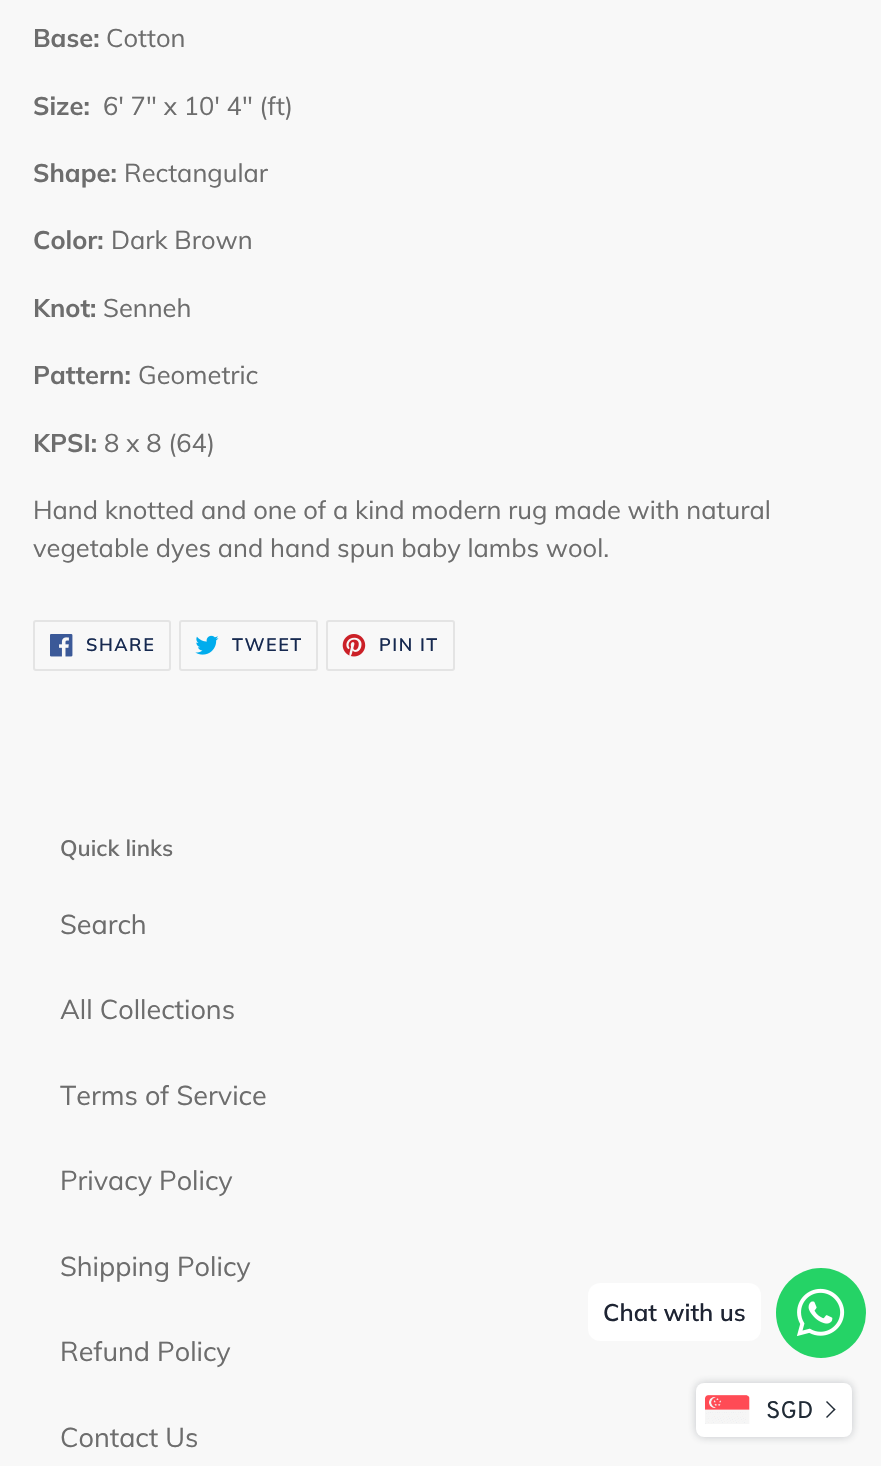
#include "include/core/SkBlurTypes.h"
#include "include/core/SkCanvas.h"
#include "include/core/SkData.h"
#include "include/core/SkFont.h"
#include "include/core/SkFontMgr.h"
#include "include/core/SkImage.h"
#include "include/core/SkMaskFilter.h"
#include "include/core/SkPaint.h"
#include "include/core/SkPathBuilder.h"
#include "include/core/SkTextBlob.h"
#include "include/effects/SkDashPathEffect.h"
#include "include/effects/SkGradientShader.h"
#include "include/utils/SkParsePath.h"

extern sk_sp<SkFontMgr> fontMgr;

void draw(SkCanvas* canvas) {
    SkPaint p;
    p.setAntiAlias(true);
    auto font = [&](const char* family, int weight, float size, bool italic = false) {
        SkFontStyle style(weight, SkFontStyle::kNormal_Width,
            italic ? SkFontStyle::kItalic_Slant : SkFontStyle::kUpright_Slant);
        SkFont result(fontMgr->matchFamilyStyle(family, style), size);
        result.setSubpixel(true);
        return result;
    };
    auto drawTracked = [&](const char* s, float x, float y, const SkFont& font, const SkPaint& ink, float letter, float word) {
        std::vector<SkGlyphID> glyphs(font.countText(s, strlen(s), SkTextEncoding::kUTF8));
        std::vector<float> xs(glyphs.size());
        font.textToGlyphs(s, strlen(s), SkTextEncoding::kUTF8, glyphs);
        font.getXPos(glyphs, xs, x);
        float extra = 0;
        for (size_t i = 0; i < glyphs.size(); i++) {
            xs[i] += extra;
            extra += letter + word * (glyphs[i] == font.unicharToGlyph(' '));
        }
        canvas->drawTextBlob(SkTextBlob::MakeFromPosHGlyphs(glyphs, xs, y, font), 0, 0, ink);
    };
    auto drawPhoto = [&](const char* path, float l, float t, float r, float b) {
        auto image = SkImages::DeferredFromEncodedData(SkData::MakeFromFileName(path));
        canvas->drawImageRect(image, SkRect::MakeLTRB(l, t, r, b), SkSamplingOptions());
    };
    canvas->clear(0xFFF8F8F8);
    auto font1 = font("Muli", 700, 25.5f);
    p.setColor(0xFF6D6D6D);
    canvas->drawString("Base:", 33, 47, font1, p);
    auto font2 = font("Muli", 400, 25.5f);
    canvas->drawString("Cotton", 106, 47, font2, p);
    canvas->drawString("Size:", 33, 115, font1, p);
    canvas->drawString("6' 7\" x 10' 4\" (ft)", 103, 115, font2, p);
    canvas->drawString("Shape:", 33, 182, font1, p);
    canvas->drawString("Rectangular", 124, 182, font2, p);
    canvas->drawString("Color:", 33, 249, font1, p);
    canvas->drawString("Dark Brown", 111, 249, font2, p);
    canvas->drawString("Knot:", 33, 317, font1, p);
    canvas->drawString("Senneh", 103, 317, font2, p);
    canvas->drawString("Pattern:", 33, 384, font1, p);
    canvas->drawString("Geometric", 138, 384, font2, p);
    canvas->drawString("KPSI:", 33, 452, font1, p);
    {
        const struct { const char* s; float x, y; } items[] = {
            {"8 x 8 (64)", 104, 452},
            {"Hand knotted and one of a kind modern rug made with natural", 33, 519},
            {"vegetable dyes and hand spun baby lambs wool.", 33, 557},
        };
        for (auto [s, x, y] : items) {
            canvas->drawString(s, x, y, font2, p);
        }
    }
    p.setStyle(SkPaint::kStroke_Style);
    p.setStrokeWidth(2);
    p.setColor(0xFFE4E4E4);
    canvas->drawRoundRect(SkRect::MakeLTRB(34, 621, 170, 670), 2, 2, p);
    drawPhoto("media/1.png", 50, 634, 73, 657);
    auto font3 = font("Muli", 600, 18);
    p.setStyle(SkPaint::kFill_Style);
    p.setColor(0xFF162950);
    drawTracked("SHARE", 86, 651, font3, p, 1.5f, 0);
    p.setStyle(SkPaint::kStroke_Style);
    p.setColor(0xFFE4E4E4);
    canvas->drawRoundRect(SkRect::MakeLTRB(180, 621, 317, 670), 2, 2, p);
    drawPhoto("media/2.png", 195, 635, 219, 655);
    p.setStyle(SkPaint::kFill_Style);
    p.setColor(0xFF162950);
    drawTracked("TWEET", 232, 651, font3, p, 1.5f, 0);
    p.setStyle(SkPaint::kStroke_Style);
    p.setColor(0xFFE4E4E4);
    canvas->drawRoundRect(SkRect::MakeLTRB(327, 621, 454, 670), 2, 2, p);
    drawPhoto("media/3.png", 342, 634, 366, 657);
    p.setStyle(SkPaint::kFill_Style);
    p.setColor(0xFF162950);
    drawTracked("PIN IT", 379, 651, font3, p, 1.5f, 0);
    auto font4 = font("Muli", 600, 22.5f);
    p.setColor(0xFF6D6D6D);
    canvas->drawString("Quick links", 60, 856, font4, p);
    auto font5 = font("Muli", 400, 27);
    {
        const struct { const char* s; float x, y; } items[] = {
            {"Search", 60, 934},
            {"All Collections", 60, 1019},
            {"Terms of Service", 60, 1105},
            {"Privacy Policy", 60, 1190},
            {"Shipping Policy", 60, 1276},
            {"Refund Policy", 60, 1361},
            {"Contact Us", 60, 1447},
        };
        for (auto [s, x, y] : items) {
            canvas->drawString(s, x, y, font5, p);
        }
    }
    p.setColor(0xFF25D366);
    canvas->drawCircle(821, 1313, 45, p);
    p.setColor(0xFFFFFFFF);
    canvas->drawRoundRect(SkRect::MakeLTRB(588, 1283, 761, 1341), 12, 12, p);
    auto font6 = font("Muli", 600, 24);
    p.setColor(0xFF1E2433);
    canvas->drawString("Chat with us", 603, 1321, font6, p);
    drawPhoto("media/4.png", 797, 1288, 845, 1336);
    p.setColor(0x40212B36);
    p.setMaskFilter(SkMaskFilter::MakeBlur(kNormal_SkBlurStyle, 4));
    canvas->drawRoundRect(SkRect::MakeLTRB(696, 1383, 852, 1437), 8, 8, p);
    p.setMaskFilter(nullptr);
    p.setColor(0xFFFFFFFF);
    canvas->drawRoundRect(SkRect::MakeLTRB(696, 1383, 852, 1437), 8, 8, p);
    drawPhoto("media/5.png", 705, 1395, 750, 1424);
    auto font7 = font("Overpass", 400, 24);
    p.setColor(0xFF212B36);
    canvas->drawString("SGD", 766, 1418, font7, p);
    canvas->drawPath(SkPathBuilder().moveTo(826, 1402).lineTo(827, 1401).lineTo(835.5f, 1409.5f).lineTo(834.5f, 1410.5f).close().detach(), p);
    canvas->drawPath(SkPathBuilder().moveTo(826, 1417).lineTo(834.5f, 1408.5f).lineTo(835.5f, 1409.5f).lineTo(827, 1418).close().detach(), p);
}
